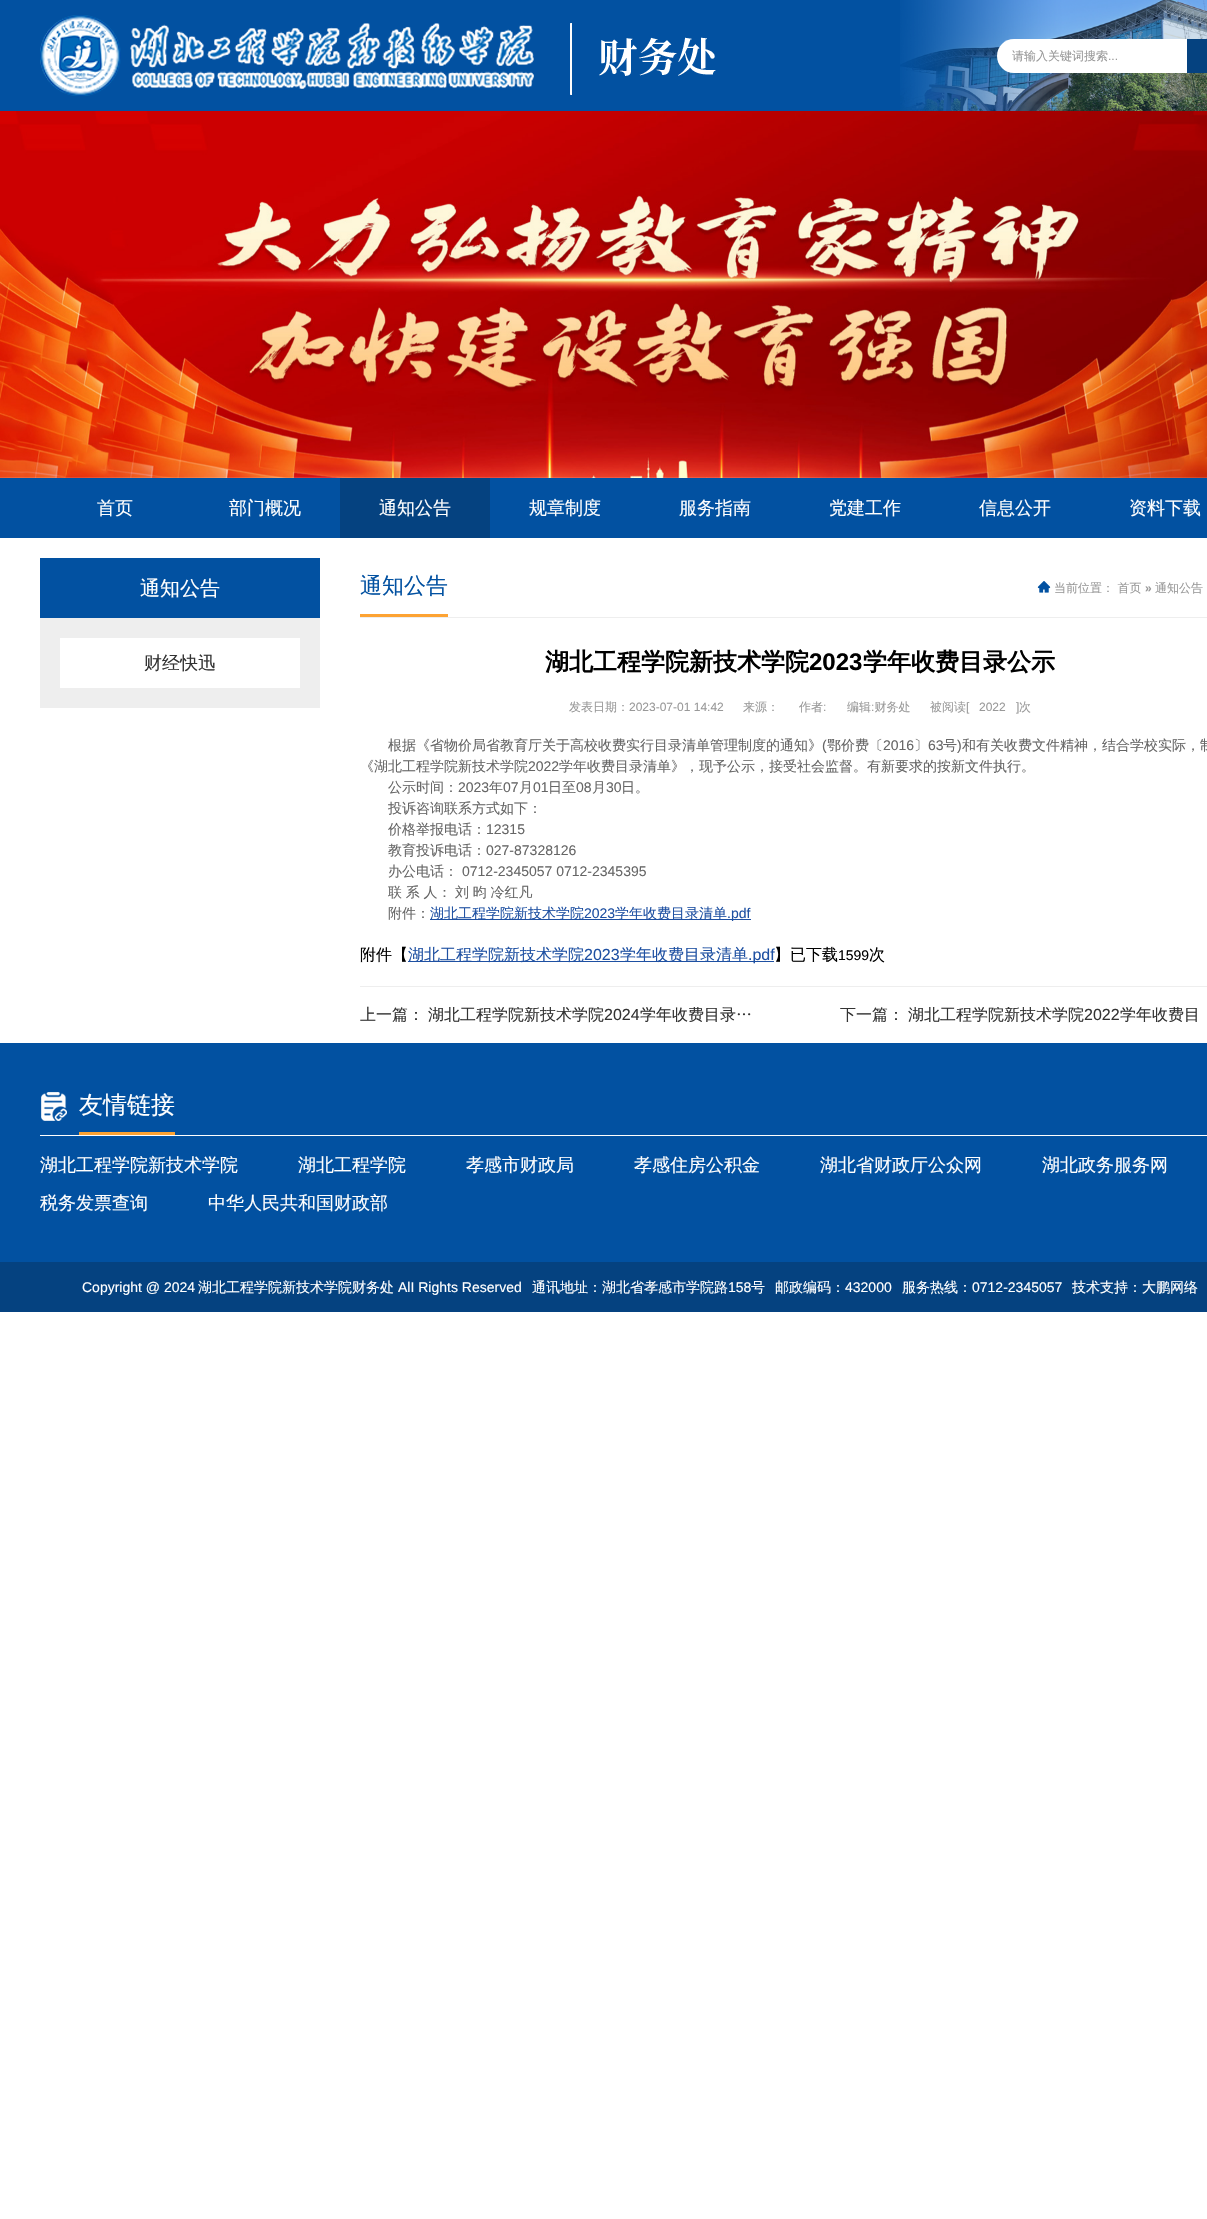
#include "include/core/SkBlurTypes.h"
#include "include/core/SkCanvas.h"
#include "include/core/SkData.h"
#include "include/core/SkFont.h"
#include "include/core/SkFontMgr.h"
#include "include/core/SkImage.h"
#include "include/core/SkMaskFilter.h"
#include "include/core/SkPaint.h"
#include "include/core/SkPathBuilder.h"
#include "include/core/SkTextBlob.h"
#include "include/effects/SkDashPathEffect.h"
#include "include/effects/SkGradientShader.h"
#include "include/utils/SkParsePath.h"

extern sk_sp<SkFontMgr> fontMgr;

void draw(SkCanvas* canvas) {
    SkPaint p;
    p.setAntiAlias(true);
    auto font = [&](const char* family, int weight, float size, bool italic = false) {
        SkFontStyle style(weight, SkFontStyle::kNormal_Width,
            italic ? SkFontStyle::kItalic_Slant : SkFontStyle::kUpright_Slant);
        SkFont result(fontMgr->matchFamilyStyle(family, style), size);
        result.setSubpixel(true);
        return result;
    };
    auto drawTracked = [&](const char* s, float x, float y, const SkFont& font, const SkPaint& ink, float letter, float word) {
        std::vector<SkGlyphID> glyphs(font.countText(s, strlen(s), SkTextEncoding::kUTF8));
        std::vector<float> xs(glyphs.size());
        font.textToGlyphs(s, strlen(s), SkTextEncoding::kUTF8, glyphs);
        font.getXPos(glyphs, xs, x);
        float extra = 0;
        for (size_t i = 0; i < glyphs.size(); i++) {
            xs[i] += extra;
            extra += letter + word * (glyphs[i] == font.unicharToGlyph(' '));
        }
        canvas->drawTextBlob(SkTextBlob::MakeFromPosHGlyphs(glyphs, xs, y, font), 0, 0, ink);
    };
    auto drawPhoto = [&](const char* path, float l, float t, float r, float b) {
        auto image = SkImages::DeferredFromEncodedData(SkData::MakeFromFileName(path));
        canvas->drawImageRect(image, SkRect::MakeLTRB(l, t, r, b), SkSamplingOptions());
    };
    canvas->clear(0xFFFFFFFF);
    p.setColor(0xFF0251A1);
    canvas->drawRect(SkRect::MakeLTRB(0, 0, 1207, 111), p);
    drawPhoto("media/1.png", 900, 0, 1207, 111);
    drawPhoto("media/2.png", 40, 15, 716, 96);
    p.setColor(0xFFFFFFFF);
    canvas->drawPath(SkPathBuilder().moveTo(1014, 39).lineTo(1187, 39).lineTo(1187, 73).lineTo(1014, 73).cubicTo(1004.5f, 73, 997, 65.5f, 997, 56).cubicTo(997, 46.5f, 1004.5f, 39, 1014, 39).close().detach(), p);
    auto font1 = font("WenQuanYi Zen Hei", 500, 12);
    p.setColor(0xFF999999);
    canvas->drawString("请输入关键词搜索", 1012, 60, font1, p);
    auto font2 = font("Liberation Sans", 400, 12);
    canvas->drawString("...", 1108, 60, font2, p);
    p.setColor(0xFF054280);
    canvas->drawRect(SkRect::MakeLTRB(1187, 39, 1207, 73), p);
    drawPhoto("media/3.png", 0, 111, 1207, 478);
    p.setColor(0xFF0251A1);
    canvas->drawRect(SkRect::MakeLTRB(0, 478, 1207, 538), p);
    auto font3 = font("WenQuanYi Zen Hei", 500, 18);
    p.setColor(0xFFFFFFFF);
    canvas->drawString("首页", 97, 514, font3, p);
    canvas->drawString("部门概况", 229, 514, font3, p);
    p.setColor(0xFF054280);
    canvas->drawRect(SkRect::MakeLTRB(340, 478, 490, 538), p);
    p.setColor(0xFFFFFFFF);
    {
        const struct { const char* s; float x, y; } items[] = {
            {"通知公告", 379, 514},
            {"规章制度", 529, 514},
            {"服务指南", 679, 514},
            {"党建工作", 829, 514},
            {"信息公开", 979, 514},
            {"资料下载", 1129, 514},
        };
        for (auto [s, x, y] : items) {
            canvas->drawString(s, x, y, font3, p);
        }
    }
    p.setColor(0xFF0251A1);
    canvas->drawRect(SkRect::MakeLTRB(40, 558, 320, 618), p);
    auto font4 = font("WenQuanYi Zen Hei", 500, 20);
    p.setColor(0xFFFFFFFF);
    canvas->drawString("通知公告", 140, 595, font4, p);
    p.setColor(0xFFEEEEEE);
    canvas->drawRect(SkRect::MakeLTRB(40, 618, 320, 708), p);
    p.setColor(0xFFFFFFFF);
    canvas->drawRect(SkRect::MakeLTRB(60, 638, 300, 688), p);
    p.setColor(0xFF333333);
    canvas->drawString("财经快迅", 144, 669, font3, p);
    p.setColor(0xFFEEEEEE);
    canvas->drawRect(SkRect::MakeLTRB(360, 617, 1207, 618), p);
    p.setColor(0xFFFDA333);
    canvas->drawRect(SkRect::MakeLTRB(360, 614, 448, 617), p);
    auto font5 = font("WenQuanYi Zen Hei", 500, 22);
    p.setColor(0xFF0251A1);
    canvas->drawString("通知公告", 360, 593, font5, p);
    drawPhoto("media/4.png", 1037, 581, 1051, 593);
    p.setColor(0xFF999999);
    canvas->drawString("当前位置： 首页", 1054, 592, font1, p);
    auto font6 = font("Liberation Sans", 700, 12);
    canvas->drawString("»", 1145, 592, font6, p);
    canvas->drawString("通知公告", 1155, 592, font1, p);
    auto font7 = font("WenQuanYi Zen Hei", 700, 24);
    p.setColor(0xFF000000);
    canvas->drawString("湖北工程学院新技术学院", 545, 670, font7, p);
    auto font8 = font("Liberation Sans", 700, 24);
    canvas->drawString("2023", 809, 670, font8, p);
    canvas->drawString("学年收费目录公示", 863, 670, font7, p);
    p.setColor(0xFF999999);
    canvas->drawString("发表日期：", 569, 711, font1, p);
    canvas->drawString("2023-07-01 14:42", 629, 711, font2, p);
    canvas->drawString("来源：", 743, 711, font1, p);
    canvas->drawString("作者", 799, 711, font1, p);
    canvas->drawString(":", 823, 711, font2, p);
    canvas->drawString("编辑 财务处", 847, 711, font1, p);
    canvas->drawString(":", 871, 711, font2, p);
    canvas->drawString("被阅读", 930, 711, font1, p);
    {
        const struct { const char* s; float x, y; } items[] = {
            {"[", 966, 711},
            {"2022", 979, 711},
            {"]", 1016, 711},
        };
        for (auto [s, x, y] : items) {
            canvas->drawString(s, x, y, font2, p);
        }
    }
    canvas->drawString("次", 1019, 711, font1, p);
    auto font9 = font("WenQuanYi Zen Hei", 500, 14);
    p.setColor(0xFF666666);
    canvas->drawString("根据《省物价局省教育厅关于高校收费实行目录清单管理制度的通知》", 388, 750, font9, p);
    auto font10 = font("Liberation Sans", 400, 14);
    canvas->drawString("(", 822, 750, font10, p);
    canvas->drawString("鄂价费〔", 827, 750, font9, p);
    canvas->drawString("2016", 883, 750, font10, p);
    canvas->drawString("〕", 914, 750, font9, p);
    canvas->drawString("63", 928, 750, font10, p);
    canvas->drawString("号", 943, 750, font9, p);
    canvas->drawString(")", 957, 750, font10, p);
    canvas->drawString("和有关收费文件精神，结合学校实际，制", 962, 750, font9, p);
    canvas->drawString("《湖北工程学院新技术学院", 360, 771, font9, p);
    canvas->drawString("2022", 528, 771, font10, p);
    canvas->drawString("学年收费目录清单》，现予公示，接受社会监督。有新要求的按新文件执行。", 559, 771, font9, p);
    canvas->drawString("公示时间：", 388, 792, font9, p);
    canvas->drawString("2023", 458, 792, font10, p);
    canvas->drawString("年", 489, 792, font9, p);
    canvas->drawString("07", 503, 792, font10, p);
    canvas->drawString("月", 519, 792, font9, p);
    canvas->drawString("01", 533, 792, font10, p);
    canvas->drawString("日至", 548, 792, font9, p);
    canvas->drawString("08", 576, 792, font10, p);
    canvas->drawString("月", 592, 792, font9, p);
    canvas->drawString("30", 606, 792, font10, p);
    {
        const struct { const char* s; float x, y; } items[] = {
            {"日。", 621, 792},
            {"投诉咨询联系方式如下：", 388, 813},
            {"价格举报电话：", 388, 834},
        };
        for (auto [s, x, y] : items) {
            canvas->drawString(s, x, y, font9, p);
        }
    }
    canvas->drawString("12315", 486, 834, font10, p);
    canvas->drawString("教育投诉电话：", 388, 855, font9, p);
    canvas->drawString("027-87328126", 486, 855, font10, p);
    canvas->drawString("办公电话：", 388, 876, font9, p);
    canvas->drawString("0712-2345057 0712-2345395", 462, 876, font10, p);
    drawTracked("联 系 人： 刘 昀 冷红凡", 388, 897, font9, p, 0, -0.5f);
    canvas->drawString("附件：", 388, 918, font9, p);
    p.setColor(0xFF1E50A2);
    canvas->drawRect(SkRect::MakeLTRB(430, 919, 751, 920), p);
    canvas->drawString("湖北工程学院新技术学院", 430, 918, font9, p);
    canvas->drawString("2023", 584, 918, font10, p);
    canvas->drawString("学年收费目录清单", 615, 918, font9, p);
    canvas->drawString(".pdf", 727, 918, font10, p);
    auto font11 = font("WenQuanYi Zen Hei", 500, 16);
    p.setColor(0xFF000000);
    canvas->drawString("附件【", 360, 960, font11, p);
    p.setColor(0xFF1E50A2);
    canvas->drawRect(SkRect::MakeLTRB(408, 961, 774, 962), p);
    canvas->drawString("湖北工程学院新技术学院", 408, 960, font11, p);
    auto font12 = font("Liberation Sans", 400, 16);
    canvas->drawString("2023", 584, 960, font12, p);
    canvas->drawString("学年收费目录清单", 620, 960, font11, p);
    canvas->drawString(".pdf", 748, 960, font12, p);
    p.setColor(0xFF000000);
    canvas->drawString("】已下载", 774, 960, font11, p);
    canvas->drawString("1599", 838, 960, font10, p);
    canvas->drawString("次", 869, 960, font11, p);
    p.setColor(0xFFEEEEEE);
    canvas->drawRect(SkRect::MakeLTRB(360, 986, 1207, 987), p);
    p.setColor(0xFF333333);
    canvas->drawString("上一篇：", 360, 1020, font11, p);
    canvas->save();
    canvas->clipRect(SkRect::MakeLTRB(360, 1007, 760, 1023));
    canvas->drawString("湖北工程学院新技术学院", 428, 1020, font11, p);
    canvas->restore();
    canvas->drawString("2024", 604, 1020, font12, p);
    canvas->save();
    canvas->clipRect(SkRect::MakeLTRB(360, 1007, 760, 1023));
    canvas->drawString("学年收费目录…", 640, 1020, font11, p);
    canvas->restore();
    canvas->drawString("下一篇：", 840, 1020, font11, p);
    canvas->save();
    canvas->clipRect(SkRect::MakeLTRB(840, 1007, 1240, 1023));
    canvas->drawString("湖北工程学院新技术学院", 908, 1020, font11, p);
    canvas->restore();
    canvas->drawString("2022", 1084, 1020, font12, p);
    canvas->save();
    canvas->clipRect(SkRect::MakeLTRB(840, 1007, 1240, 1023));
    canvas->drawString("学年收费目", 1120, 1020, font11, p);
    canvas->restore();
    p.setColor(0xFF0251A1);
    canvas->drawRect(SkRect::MakeLTRB(0, 1043, 1207, 1262), p);
    p.setColor(0xFFFFFFFF);
    canvas->drawRect(SkRect::MakeLTRB(40, 1135, 1207, 1136), p);
    drawPhoto("media/5.png", 41, 1092, 67, 1121);
    p.setColor(0xFFFDA333);
    canvas->drawRect(SkRect::MakeLTRB(79, 1132, 175, 1135), p);
    auto font13 = font("WenQuanYi Zen Hei", 500, 24);
    p.setColor(0xFFFFFFFF);
    canvas->drawString("友情链接", 79, 1113, font13, p);
    {
        const struct { const char* s; float x, y; } items[] = {
            {"湖北工程学院新技术学院", 40, 1171},
            {"湖北工程学院", 298, 1171},
            {"孝感市财政局", 466, 1171},
            {"孝感住房公积金", 634, 1171},
            {"湖北省财政厅公众网", 820, 1171},
            {"湖北政务服务网", 1042, 1171},
            {"税务发票查询", 40, 1209},
            {"中华人民共和国财政部", 208, 1209},
        };
        for (auto [s, x, y] : items) {
            canvas->drawString(s, x, y, font3, p);
        }
    }
    p.setColor(0xFF054280);
    canvas->drawRect(SkRect::MakeLTRB(0, 1262, 1207, 1312), p);
    p.setColor(0xFFFFFFFF);
    canvas->drawString("Copyright @ 2024", 82, 1292, font10, p);
    canvas->drawString("湖北工程学院新技术学院财务处", 198, 1292, font9, p);
    canvas->drawString("AlI Rights Reserved", 398, 1292, font10, p);
    canvas->drawString("通讯地址：湖北省孝感市学院路", 532, 1292, font9, p);
    canvas->drawString("158", 728, 1292, font10, p);
    canvas->drawString("号", 751, 1292, font9, p);
    canvas->drawString("邮政编码：", 775, 1292, font9, p);
    canvas->drawString("432000", 845, 1292, font10, p);
    canvas->drawString("服务热线：", 902, 1292, font9, p);
    canvas->drawString("0712-2345057", 972, 1292, font10, p);
    canvas->drawString("技术支持：大鹏网络", 1072, 1292, font9, p);
}
